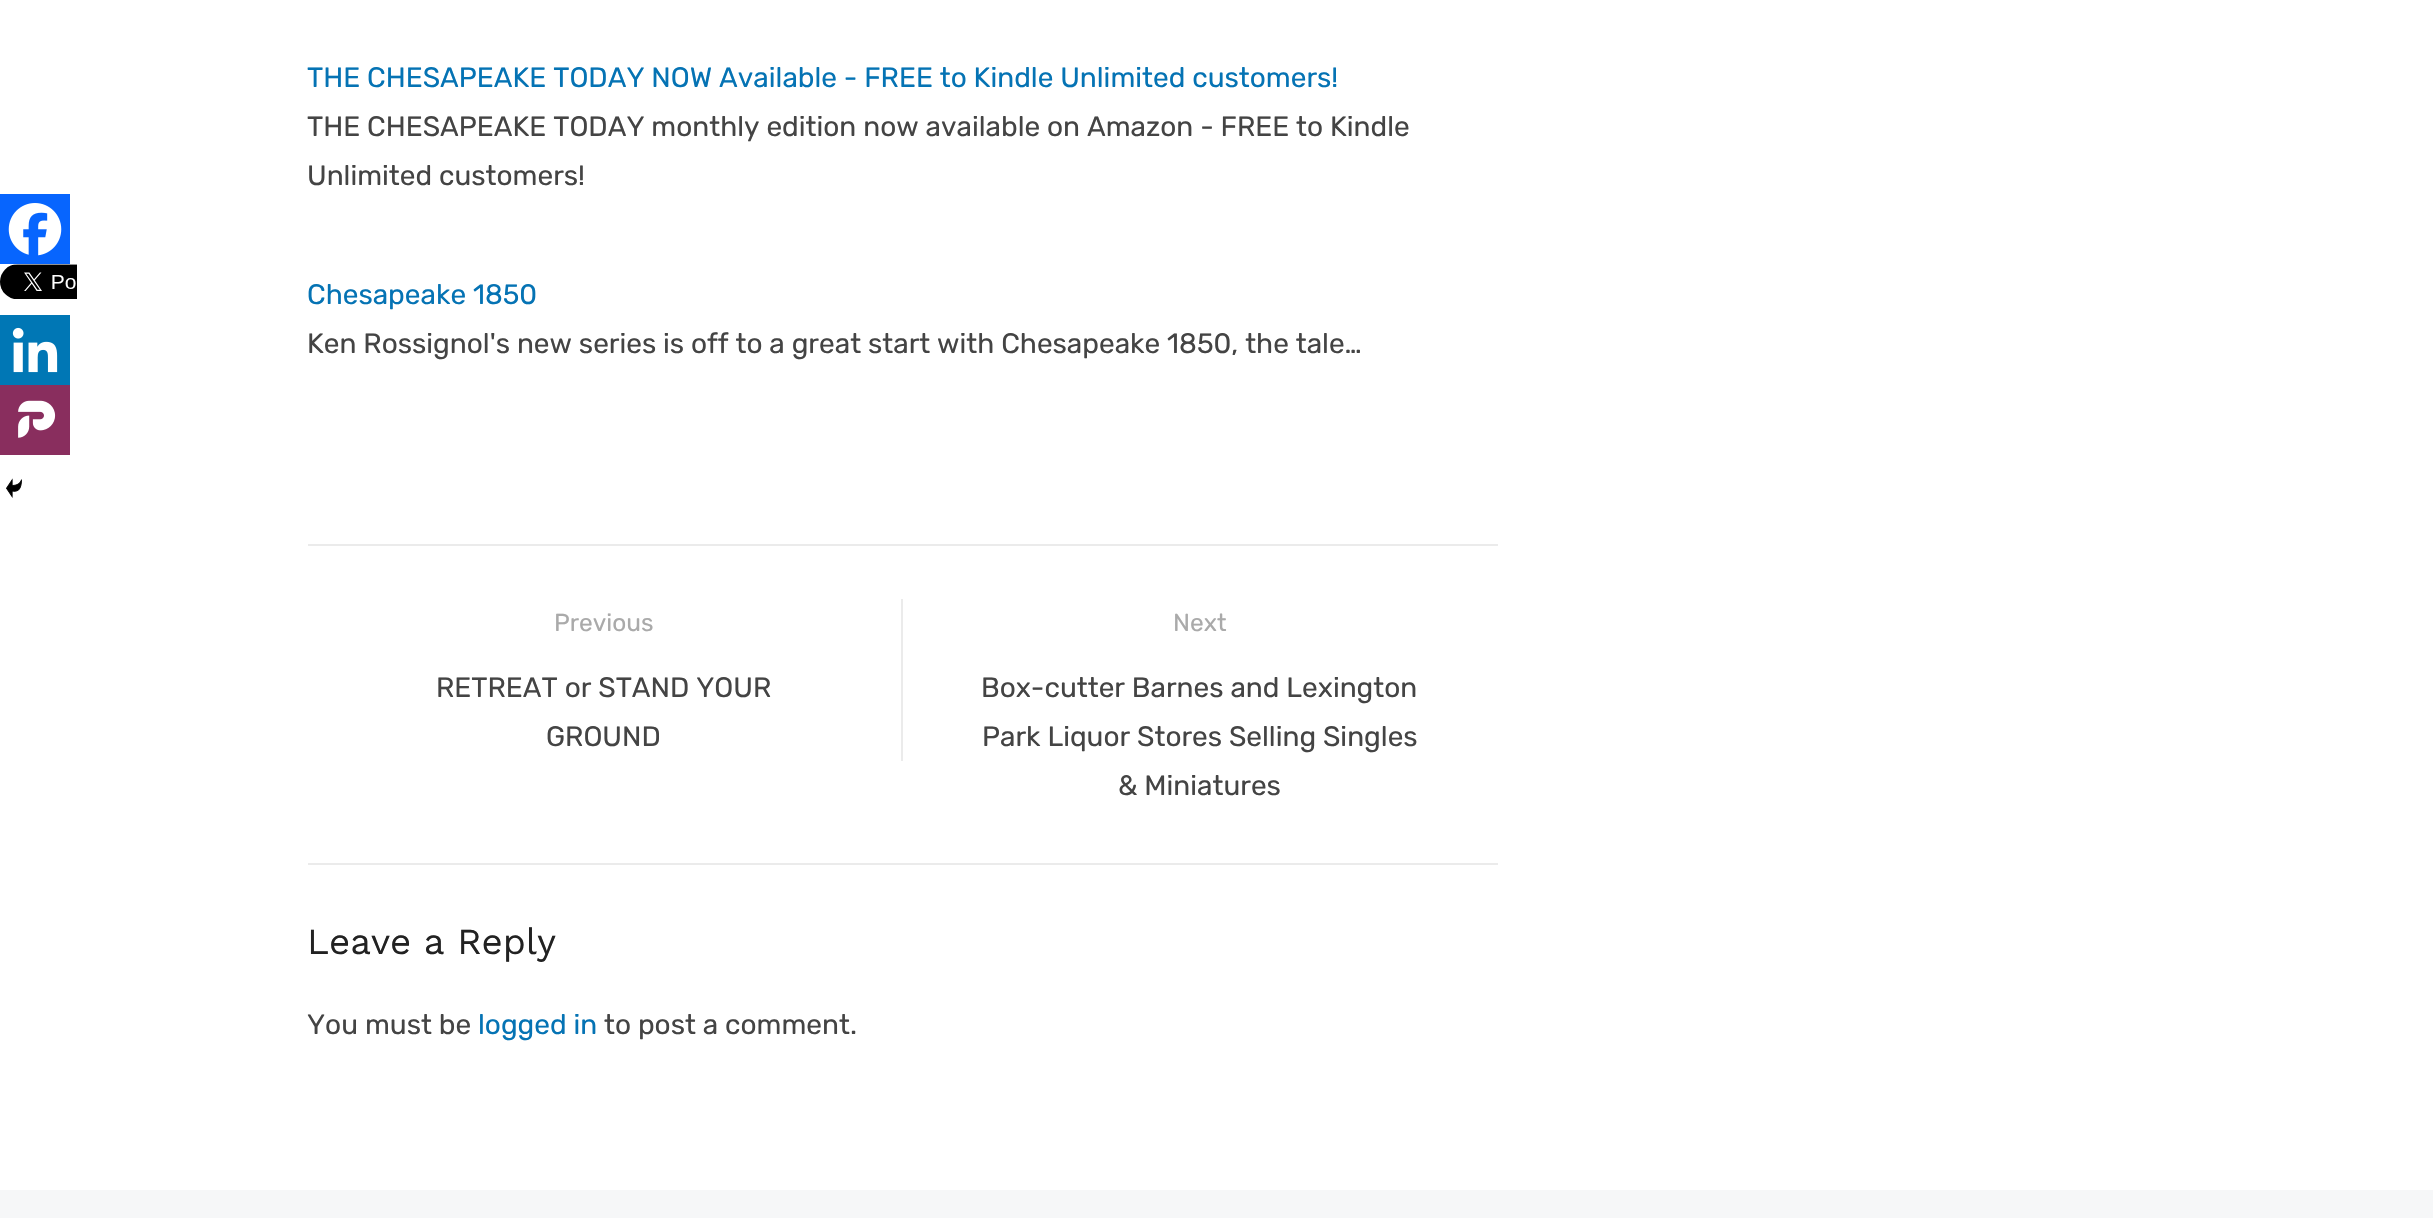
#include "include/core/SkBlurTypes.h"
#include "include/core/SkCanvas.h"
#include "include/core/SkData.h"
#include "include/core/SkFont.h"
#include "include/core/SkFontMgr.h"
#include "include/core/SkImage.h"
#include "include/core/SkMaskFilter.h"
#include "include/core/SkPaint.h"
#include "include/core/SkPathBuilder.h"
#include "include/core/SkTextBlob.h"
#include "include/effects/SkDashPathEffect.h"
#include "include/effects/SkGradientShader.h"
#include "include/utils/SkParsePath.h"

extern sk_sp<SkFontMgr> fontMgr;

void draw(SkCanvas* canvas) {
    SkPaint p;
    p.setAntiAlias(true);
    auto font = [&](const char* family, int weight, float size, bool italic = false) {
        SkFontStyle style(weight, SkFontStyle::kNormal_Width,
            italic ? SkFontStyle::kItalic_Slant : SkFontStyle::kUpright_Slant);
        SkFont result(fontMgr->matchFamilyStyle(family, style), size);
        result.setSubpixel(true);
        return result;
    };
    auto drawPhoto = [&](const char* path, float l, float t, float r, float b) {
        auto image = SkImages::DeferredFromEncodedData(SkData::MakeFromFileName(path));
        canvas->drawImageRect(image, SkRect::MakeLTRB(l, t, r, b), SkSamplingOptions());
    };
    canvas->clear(0xFFFFFFFF);
    p.setColor(0xFF0765FE);
    canvas->drawRect(SkRect::MakeLTRB(0, 194, 70, 264), p);
    drawPhoto("media/1.png", 8, 203, 62, 256);
    drawPhoto("media/2.png", 0, 264, 77, 299);
    p.setColor(0xFF0077B5);
    canvas->drawRect(SkRect::MakeLTRB(0, 315, 70, 385), p);
    drawPhoto("media/3.png", 12, 327, 58, 373);
    p.setColor(0xFF892E5E);
    canvas->drawRect(SkRect::MakeLTRB(0, 385, 70, 455), p);
    drawPhoto("media/4.png", 18, 400, 56, 438);
    drawPhoto("media/5.png", 6, 478, 22, 498);
    auto font1 = font("Rubik", 400, 28);
    p.setColor(0xFF0573B4);
    canvas->drawString("THE CHESAPEAKE TODAY NOW Available - FREE to Kindle Unlimited customers!", 307, 87, font1, p);
    p.setColor(0xFF444444);
    canvas->drawString("THE CHESAPEAKE TODAY monthly edition now available on Amazon - FREE to Kindle", 307, 136, font1, p);
    canvas->drawString("Unlimited customers!", 307, 185, font1, p);
    p.setColor(0xFF0573B4);
    canvas->drawString("Chesapeake 1850", 307, 304, font1, p);
    p.setColor(0xFF444444);
    canvas->drawString("Ken Rossignol's new series is off to a great start with Chesapeake 1850, the tale…", 307, 353, font1, p);
    {
        const struct { float l, t, r, b; SkColor color; } items[] = {
            {308, 544, 1498, 546, 0xFFEBEBEB},
            {308, 863, 1498, 865, 0xFFEBEBEB},
            {901, 599, 903, 761, 0xFFEBEBEB},
        };
        for (auto [l, t, r, b, color] : items) {
            p.setColor(color);
            canvas->drawRect(SkRect::MakeLTRB(l, t, r, b), p);
        }
    }
    auto font2 = font("Rubik", 400, 24.5f);
    p.setColor(0xFFAAAAAA);
    canvas->drawString("Previous", 554, 631, font2, p);
    p.setColor(0xFF444444);
    canvas->drawString("RETREAT or STAND YOUR", 436, 697, font1, p);
    canvas->drawString("GROUND", 546, 746, font1, p);
    p.setColor(0xFFAAAAAA);
    canvas->drawString("Next", 1173, 631, font2, p);
    p.setColor(0xFF444444);
    {
        const struct { const char* s; float x, y; } items[] = {
            {"Box-cutter Barnes and Lexington", 981, 697},
            {"Park Liquor Stores Selling Singles", 982, 746},
            {"& Miniatures", 1118, 795},
        };
        for (auto [s, x, y] : items) {
            canvas->drawString(s, x, y, font1, p);
        }
    }
    auto font3 = font("Work Sans", 400, 36.75f);
    p.setColor(0xFF222222);
    canvas->drawString("Leave a Reply", 307, 954, font3, p);
    p.setColor(0xFF444444);
    canvas->drawString("You must be", 307, 1034, font1, p);
    p.setColor(0xFF0573B4);
    canvas->drawString("logged in", 478, 1034, font1, p);
    p.setColor(0xFF444444);
    canvas->drawString("to post a comment.", 604, 1034, font1, p);
    p.setColor(0xFFF6F7F8);
    canvas->drawRect(SkRect::MakeLTRB(0, 1190, 2433, 1218), p);
}
